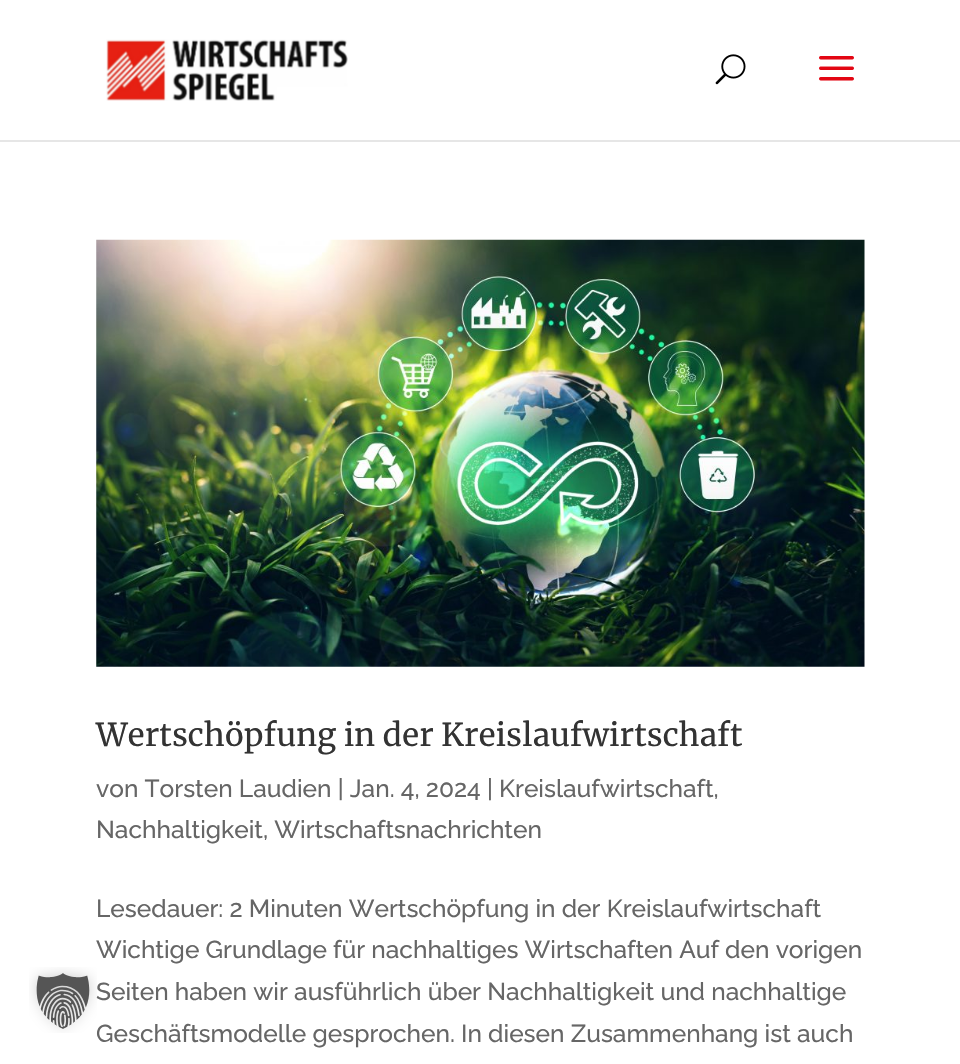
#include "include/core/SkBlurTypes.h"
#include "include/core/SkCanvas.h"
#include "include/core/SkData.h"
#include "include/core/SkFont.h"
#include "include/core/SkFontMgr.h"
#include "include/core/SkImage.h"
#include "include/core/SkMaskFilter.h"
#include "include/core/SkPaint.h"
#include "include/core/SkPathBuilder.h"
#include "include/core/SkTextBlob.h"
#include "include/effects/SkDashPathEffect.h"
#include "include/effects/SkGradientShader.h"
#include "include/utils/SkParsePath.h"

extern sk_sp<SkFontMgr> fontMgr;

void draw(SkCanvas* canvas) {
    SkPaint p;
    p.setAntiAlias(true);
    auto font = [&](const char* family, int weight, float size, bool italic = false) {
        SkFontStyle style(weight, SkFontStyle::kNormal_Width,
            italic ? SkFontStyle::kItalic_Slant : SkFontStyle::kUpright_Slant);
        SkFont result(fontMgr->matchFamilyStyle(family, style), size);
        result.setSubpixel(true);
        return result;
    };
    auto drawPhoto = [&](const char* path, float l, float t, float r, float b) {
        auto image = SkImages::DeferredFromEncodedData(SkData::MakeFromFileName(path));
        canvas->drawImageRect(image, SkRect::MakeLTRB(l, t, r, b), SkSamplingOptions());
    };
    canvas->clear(0xFFFFFFFF);
    auto font1 = font("Raleway", 500, 24.5f);
    p.setColor(0xFF666666);
    canvas->drawString("Seiten haben wir ausführlich über Nachhaltigkeit und nachhaltige", 96, 1000, font1, p);
    drawPhoto("media/1.png", 29, 967, 97, 1033);
    p.setColor(0xFFE6E6E6);
    canvas->drawPath(SkPathBuilder().moveTo(0, 140).lineTo(0, 142).lineTo(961, 142).lineTo(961, 2).lineTo(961, 140).close().detach(), p);
    drawPhoto("media/2.png", 106, 39, 348, 101);
    drawPhoto("media/3.png", 715, 54, 746, 85);
    drawPhoto("media/4.png", 819, 56, 854, 81);
    drawPhoto("media/5.png", 96, 239, 865, 667);
    auto font2 = font("Merriweather", 400, 31.5f);
    p.setColor(0xFF333333);
    canvas->drawString("Wertschöpfung in der Kreislaufwirtschaft", 96, 746, font2, p);
    p.setColor(0xFF666666);
    {
        const struct { const char* s; float x, y; } items[] = {
            {"von Torsten Laudien | Jan. 4, 2024 | Kreislaufwirtschaft,", 96, 797},
            {"Nachhaltigkeit, Wirtschaftsnachrichten", 96, 838},
            {"Lesedauer: 2 Minuten Wertschöpfung in der Kreislaufwirtschaft", 96, 917},
            {"Wichtige Grundlage für nachhaltiges Wirtschaften Auf den vorigen", 96, 958},
            {"Geschäftsmodelle gesprochen. In diesen Zusammenhang ist auch", 96, 1042},
        };
        for (auto [s, x, y] : items) {
            canvas->drawString(s, x, y, font1, p);
        }
    }
}
